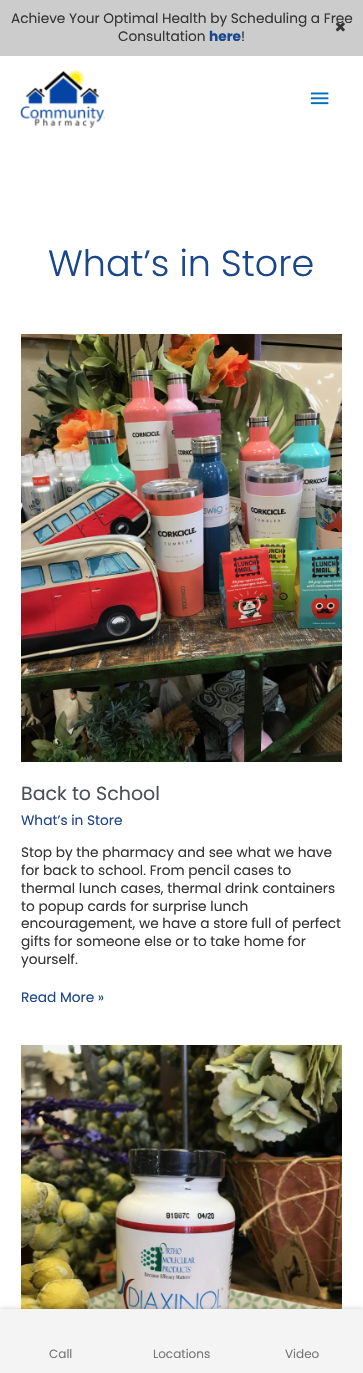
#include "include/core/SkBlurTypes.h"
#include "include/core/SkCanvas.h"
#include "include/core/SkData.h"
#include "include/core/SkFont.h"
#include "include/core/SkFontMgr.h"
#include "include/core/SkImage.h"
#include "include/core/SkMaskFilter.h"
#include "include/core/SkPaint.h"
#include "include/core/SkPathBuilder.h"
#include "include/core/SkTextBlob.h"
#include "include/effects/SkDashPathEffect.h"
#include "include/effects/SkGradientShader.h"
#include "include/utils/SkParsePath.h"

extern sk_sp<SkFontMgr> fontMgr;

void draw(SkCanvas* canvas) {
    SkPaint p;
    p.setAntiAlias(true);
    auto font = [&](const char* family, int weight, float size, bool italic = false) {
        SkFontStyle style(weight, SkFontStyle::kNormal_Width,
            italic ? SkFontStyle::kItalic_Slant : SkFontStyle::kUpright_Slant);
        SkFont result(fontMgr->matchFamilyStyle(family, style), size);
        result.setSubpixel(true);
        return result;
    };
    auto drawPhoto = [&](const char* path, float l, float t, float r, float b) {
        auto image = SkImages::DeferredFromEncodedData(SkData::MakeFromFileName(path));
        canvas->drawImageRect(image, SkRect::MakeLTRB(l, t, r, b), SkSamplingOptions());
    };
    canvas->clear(0xFFFFFFFF);
    p.setColor(0xFFCCCCCC);
    canvas->drawRect(SkRect::MakeLTRB(0, 0, 363, 56), p);
    auto font1 = font("Poppins", 400, 13.7f);
    p.setColor(0xFF353535);
    canvas->drawString("Achieve Your Optimal Health by Scheduling a Free", 11, 23, font1, p);
    canvas->drawString("Consultation", 118, 41, font1, p);
    auto font2 = font("Poppins", 700, 13.7f);
    p.setColor(0xFF1A468C);
    canvas->drawString("here", 209, 41, font2, p);
    p.setColor(0xFF353535);
    canvas->drawString("!", 241, 41, font1, p);
    drawPhoto("media/1.png", 335, 22, 345, 32);
    drawPhoto("media/2.png", 20, 69, 105, 128);
    drawPhoto("media/3.png", 310, 92, 329, 105);
    auto font3 = font("Poppins", 300, 36.5f);
    p.setColor(0xFF1A468C);
    canvas->drawString("What’s in Store", 48, 276, font3, p);
    drawPhoto("media/4.png", 21, 334, 342, 762);
    auto font4 = font("Poppins", 400, 19);
    p.setColor(0xFF4B4F58);
    canvas->drawString("Back to School", 21, 800, font4, p);
    p.setColor(0xFF1A468C);
    canvas->drawString("What’s in Store", 21, 825, font1, p);
    p.setColor(0xFF353535);
    {
        const struct { const char* s; float x, y; } items[] = {
            {"Stop by the pharmacy and see what we have", 21, 857},
            {"for back to school. From pencil cases to", 21, 875},
            {"thermal lunch cases, thermal drink containers", 21, 893},
            {"to popup cards for surprise lunch", 21, 911},
            {"encouragement, we have a store full of perfect", 21, 928},
            {"gifts for someone else or to take home for", 21, 946},
            {"yourself.", 21, 964},
        };
        for (auto [s, x, y] : items) {
            canvas->drawString(s, x, y, font1, p);
        }
    }
    p.setColor(0xFF1A468C);
    canvas->drawString("Read More »", 21, 1002, font1, p);
    drawPhoto("media/5.png", 21, 1045, 342, 1309);
    p.setColor(0x33000000);
    p.setMaskFilter(SkMaskFilter::MakeBlur(kNormal_SkBlurStyle, 2.5f));
    canvas->drawRect(SkRect::MakeLTRB(0, 1309, 363, 1373), p);
    p.setMaskFilter(nullptr);
    p.setColor(0xFFF4F4F4);
    canvas->drawRect(SkRect::MakeLTRB(0, 1309, 363, 1373), p);
    auto font5 = font("Poppins", 400, 12);
    p.setColor(0xFF777777);
    {
        const struct { const char* s; float x, y; } items[] = {
            {"Call", 49, 1358},
            {"Locations", 153, 1358},
            {"Video", 285, 1358},
        };
        for (auto [s, x, y] : items) {
            canvas->drawString(s, x, y, font5, p);
        }
    }
}
